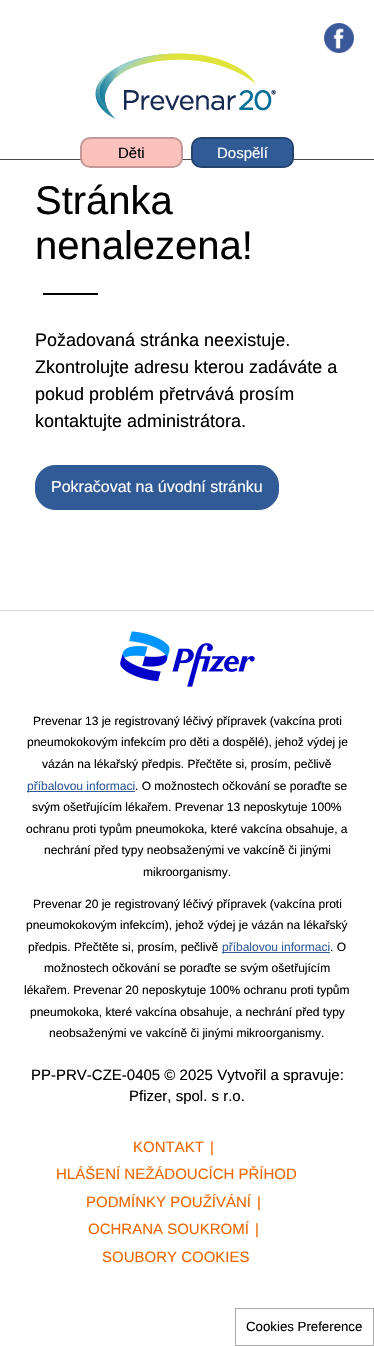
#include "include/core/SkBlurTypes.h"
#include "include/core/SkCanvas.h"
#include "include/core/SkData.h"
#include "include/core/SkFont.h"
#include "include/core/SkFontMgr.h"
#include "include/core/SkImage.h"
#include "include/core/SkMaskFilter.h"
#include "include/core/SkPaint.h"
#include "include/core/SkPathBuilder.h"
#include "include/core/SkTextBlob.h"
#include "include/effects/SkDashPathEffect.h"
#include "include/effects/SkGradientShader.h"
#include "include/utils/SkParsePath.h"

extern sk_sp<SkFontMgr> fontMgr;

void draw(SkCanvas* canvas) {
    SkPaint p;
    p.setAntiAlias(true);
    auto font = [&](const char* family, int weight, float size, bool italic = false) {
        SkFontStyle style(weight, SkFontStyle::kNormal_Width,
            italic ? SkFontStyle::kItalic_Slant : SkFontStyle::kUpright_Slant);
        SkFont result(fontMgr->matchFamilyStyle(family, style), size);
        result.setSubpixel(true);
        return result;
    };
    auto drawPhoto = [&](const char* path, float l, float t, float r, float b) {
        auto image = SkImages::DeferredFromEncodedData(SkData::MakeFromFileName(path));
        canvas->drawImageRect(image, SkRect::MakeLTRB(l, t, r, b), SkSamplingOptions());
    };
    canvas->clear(0xFFFFFFFF);
    drawPhoto("media/1.png", 324, 23, 354, 53);
    p.setColor(0xFF494949);
    canvas->drawRect(SkRect::MakeLTRB(0, 159, 374, 160), p);
    drawPhoto("media/2.png", 95, 53, 276, 119);
    p.setColor(0xFFFBC1BC);
    canvas->drawRoundRect(SkRect::MakeLTRB(81, 138, 182, 167), 9, 9, p);
    p.setStyle(SkPaint::kStroke_Style);
    p.setStrokeWidth(2);
    p.setColor(0xFFC29996);
    canvas->drawRoundRect(SkRect::MakeLTRB(81, 138, 182, 167), 9, 9, p);
    auto font1 = font("Liberation Sans", 400, 15);
    p.setStyle(SkPaint::kFill_Style);
    p.setColor(0xFF000000);
    canvas->drawString("Děti", 118, 158, font1, p);
    p.setColor(0xFF315B96);
    canvas->drawRoundRect(SkRect::MakeLTRB(192, 138, 293, 167), 9, 9, p);
    p.setStyle(SkPaint::kStroke_Style);
    p.setColor(0xFF24436D);
    canvas->drawRoundRect(SkRect::MakeLTRB(192, 138, 293, 167), 9, 9, p);
    p.setStyle(SkPaint::kFill_Style);
    p.setColor(0xFFFFFFFF);
    canvas->drawString("Dospělí", 217, 158, font1, p);
    auto font2 = font("Liberation Sans", 400, 40);
    p.setColor(0xFF000000);
    canvas->drawString("Stránka", 35, 214, font2, p);
    canvas->drawString("nenalezena!", 35, 259, font2, p);
    canvas->drawRect(SkRect::MakeLTRB(43, 293, 98, 295), p);
    auto font3 = font("Liberation Sans", 400, 18);
    {
        const struct { const char* s; float x, y; } items[] = {
            {"Požadovaná stránka neexistuje.", 35, 346},
            {"Zkontrolujte adresu kterou zadáváte a", 35, 373},
            {"pokud problém přetrvává prosím", 35, 400},
            {"kontaktujte administrátora.", 35, 427},
        };
        for (auto [s, x, y] : items) {
            canvas->drawString(s, x, y, font3, p);
        }
    }
    p.setColor(0xFF315B96);
    canvas->drawRoundRect(SkRect::MakeLTRB(35.5f, 465.5f, 278.5f, 509.5f), 19.5f, 19.5f, p);
    p.setStyle(SkPaint::kStroke_Style);
    p.setStrokeWidth(1);
    canvas->drawRoundRect(SkRect::MakeLTRB(35.5f, 465.5f, 278.5f, 509.5f), 19.5f, 19.5f, p);
    auto font4 = font("Liberation Sans", 400, 16);
    p.setStyle(SkPaint::kFill_Style);
    p.setColor(0xFFFFFFFF);
    canvas->drawString("Pokračovat na úvodní stránku", 51, 492, font4, p);
    p.setColor(0xFFD8D8D8);
    canvas->drawRect(SkRect::MakeLTRB(0, 610, 374, 611), p);
    drawPhoto("media/3.png", 120, 631, 255, 687);
    auto font5 = font("Liberation Sans", 400, 12);
    p.setColor(0xFF000000);
    {
        const struct { const char* s; float x, y; } items[] = {
            {"Prevenar 13 je registrovaný léčivý přípravek (vakcína proti", 33, 725},
            {"pneumokokovým infekcím pro děti a dospělé), jehož výdej je", 27, 746},
            {"vázán na lékařský předpis. Přečtěte si, prosím, pečlivě", 42, 768},
        };
        for (auto [s, x, y] : items) {
            canvas->drawString(s, x, y, font5, p);
        }
    }
    p.setColor(0xFF315B96);
    canvas->drawRect(SkRect::MakeLTRB(27, 791, 135, 792), p);
    canvas->drawString("příbalovou informaci", 27, 790, font5, p);
    p.setColor(0xFF000000);
    {
        const struct { const char* s; float x, y; } items[] = {
            {". O možnostech očkování se poraďte se", 135, 790},
            {"svým ošetřujícím lékařem. Prevenar 13 neposkytuje 100%", 32, 811},
            {"ochranu proti typům pneumokoka, které vakcína obsahuje, a", 26, 833},
            {"nechrání před typy neobsaženými ve vakcíně či jinými", 44, 854},
            {"mikroorganismy.", 143, 876},
            {"Prevenar 20 je registrovaný léčivý přípravek (vakcína proti", 33, 908},
            {"pneumokokovým infekcím), jehož výdej je vázán na lékařský", 26, 929},
            {"předpis. Přečtěte si, prosím, pečlivě", 28, 951},
        };
        for (auto [s, x, y] : items) {
            canvas->drawString(s, x, y, font5, p);
        }
    }
    p.setColor(0xFF315B96);
    canvas->drawRect(SkRect::MakeLTRB(222, 952, 330, 953), p);
    canvas->drawString("příbalovou informaci", 222, 951, font5, p);
    p.setColor(0xFF000000);
    {
        const struct { const char* s; float x, y; } items[] = {
            {". O", 330, 951},
            {"možnostech očkování se poraďte se svým ošetřujícím", 44, 972},
            {"lékařem. Prevenar 20 neposkytuje 100% ochranu proti typům", 24, 994},
            {"pneumokoka, které vakcína obsahuje, a nechrání před typy", 30, 1016},
            {"neobsaženými ve vakcíně či jinými mikroorganismy.", 49, 1037},
        };
        for (auto [s, x, y] : items) {
            canvas->drawString(s, x, y, font5, p);
        }
    }
    canvas->drawString("PP-PRV-CZE-0405 © 2025 Vytvořil a spravuje:", 31, 1080, font1, p);
    canvas->drawString("Pfizer, spol. s r.o.", 129, 1101, font1, p);
    p.setColor(0xFFEC6700);
    {
        const struct { const char* s; float x, y; } items[] = {
            {"KONTAKT", 133, 1152},
            {"|", 210, 1152},
            {"HLÁŠENÍ NEŽÁDOUCÍCH PŘÍHOD", 56, 1179},
            {"PODMÍNKY POUŽÍVÁNÍ", 86, 1207},
            {"|", 257, 1207},
            {"OCHRANA SOUKROMÍ", 88, 1234},
            {"|", 255, 1234},
            {"SOUBORY COOKIES", 102, 1262},
        };
        for (auto [s, x, y] : items) {
            canvas->drawString(s, x, y, font1, p);
        }
    }
    p.setStyle(SkPaint::kStroke_Style);
    p.setColor(0xFFAAAAAA);
    canvas->drawRect(SkRect::MakeLTRB(235.5f, 1308.5f, 373.5f, 1345.5f), p);
    auto font6 = font("Liberation Sans", 400, 13.25f);
    p.setStyle(SkPaint::kFill_Style);
    p.setColor(0xFF000000);
    canvas->drawString("Cookies Preference", 246, 1331, font6, p);
}
